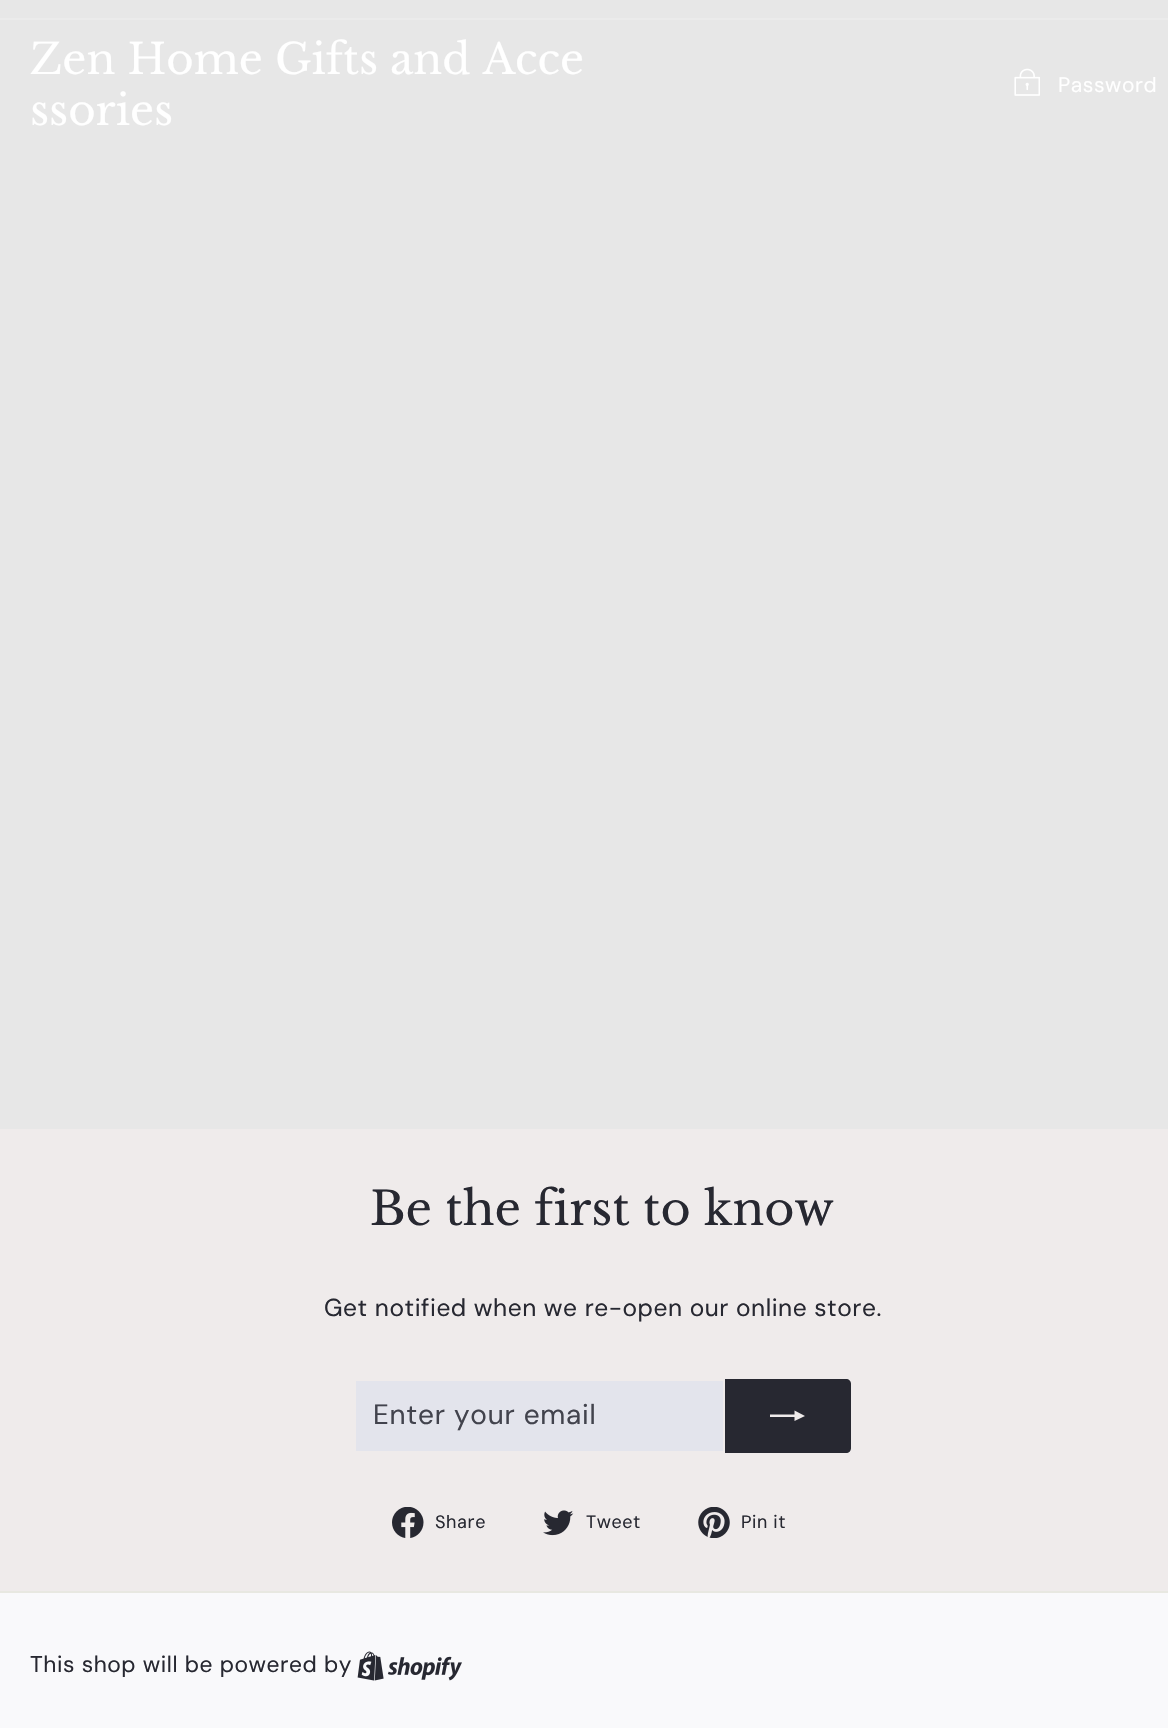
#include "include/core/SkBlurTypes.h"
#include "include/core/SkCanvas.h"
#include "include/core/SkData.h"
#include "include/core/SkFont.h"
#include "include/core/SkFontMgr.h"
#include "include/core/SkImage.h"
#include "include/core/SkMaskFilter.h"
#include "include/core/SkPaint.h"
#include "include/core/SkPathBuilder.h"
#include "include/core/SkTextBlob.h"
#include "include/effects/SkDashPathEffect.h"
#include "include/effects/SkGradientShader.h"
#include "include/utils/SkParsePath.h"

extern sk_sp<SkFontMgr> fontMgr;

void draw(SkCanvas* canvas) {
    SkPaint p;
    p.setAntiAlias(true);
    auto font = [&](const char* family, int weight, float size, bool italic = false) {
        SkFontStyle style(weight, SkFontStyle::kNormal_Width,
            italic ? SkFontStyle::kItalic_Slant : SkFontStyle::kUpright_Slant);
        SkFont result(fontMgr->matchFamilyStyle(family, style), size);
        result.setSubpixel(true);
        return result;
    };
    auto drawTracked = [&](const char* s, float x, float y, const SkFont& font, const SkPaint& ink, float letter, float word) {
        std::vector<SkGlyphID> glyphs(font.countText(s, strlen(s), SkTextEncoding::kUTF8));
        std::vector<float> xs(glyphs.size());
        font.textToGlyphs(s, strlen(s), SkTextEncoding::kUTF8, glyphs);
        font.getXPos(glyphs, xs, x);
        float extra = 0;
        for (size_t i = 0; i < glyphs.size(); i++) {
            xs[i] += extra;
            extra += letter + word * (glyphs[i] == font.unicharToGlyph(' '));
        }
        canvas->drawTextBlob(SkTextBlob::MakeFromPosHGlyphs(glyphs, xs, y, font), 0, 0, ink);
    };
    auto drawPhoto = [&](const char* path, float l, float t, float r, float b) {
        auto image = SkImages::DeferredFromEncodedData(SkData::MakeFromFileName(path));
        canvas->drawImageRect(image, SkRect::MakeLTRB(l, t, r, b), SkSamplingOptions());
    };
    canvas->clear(0xFFF9F9FB);
    p.setColor(0xFFE7E7E7);
    canvas->drawRect(SkRect::MakeLTRB(0, 0, 1168, 1129), p);
    p.setColor(0xFFEBEBEB);
    canvas->drawRect(SkRect::MakeLTRB(0, 18, 1168, 20), p);
    auto font1 = font("Libre Baskerville", 400, 42);
    p.setColor(0xFFFFFFFF);
    canvas->drawString("Zen Home Gifts and Acce", 30, 74, font1, p);
    canvas->drawString("ssories", 30, 125, font1, p);
    drawPhoto("media/1.png", 1014, 68, 1040, 96);
    auto font2 = font("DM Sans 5", 400, 21);
    drawTracked("Password", 1058, 92, font2, p, 0.55f, 0);
    p.setColor(0xFFEFEBEB);
    canvas->drawRect(SkRect::MakeLTRB(0, 1129, 1168, 1591), p);
    auto font3 = font("Libre Baskerville", 400, 46.25f);
    p.setColor(0xFF272831);
    canvas->drawString("Be the first to know", 370, 1225, font3, p);
    auto font4 = font("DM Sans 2", 400, 24.5f);
    drawTracked("Get notified when we re-open our online store.", 324, 1316, font4, p, 0.55f, 0);
    p.setColor(0xFFE3E4EC);
    canvas->drawRect(SkRect::MakeLTRB(356, 1381, 723, 1451), p);
    auto font5 = font("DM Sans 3", 400, 28);
    p.setColor(0xFF42434D);
    drawTracked("Enter your email", 373, 1424, font5, p, 0.75f, 0);
    p.setColor(0xFF272831);
    canvas->drawPath(SkPathBuilder().moveTo(725, 1379).lineTo(846, 1379).cubicTo(849, 1379, 851, 1381, 851, 1384).lineTo(851, 1448).cubicTo(851, 1451, 849, 1453, 846, 1453).lineTo(725, 1453).close().detach(), p);
    p.setColor(0xFFEFEBEB);
    canvas->drawPath(SkPathBuilder().moveTo(770, 1417).lineTo(770, 1414.5f).lineTo(794.5f, 1414.5f).lineTo(794.5f, 1410.5f).lineTo(805, 1416).lineTo(794.5f, 1421).lineTo(794.5f, 1417).close().detach(), p);
    drawPhoto("media/2.png", 392, 1507, 424, 1538);
    auto font6 = font("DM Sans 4", 400, 18);
    p.setColor(0xFF272831);
    drawTracked("Share", 435, 1528, font6, p, 0.55f, 0);
    drawPhoto("media/3.png", 543, 1510, 574, 1536);
    drawTracked("Tweet", 586, 1528, font6, p, 0.55f, 0);
    drawPhoto("media/4.png", 698, 1507, 730, 1538);
    drawTracked("Pin it", 741, 1528, font6, p, 0.55f, 0);
    p.setColor(0xFFE8E8E1);
    canvas->drawRect(SkRect::MakeLTRB(0, 1591, 1168, 1593), p);
    auto font7 = font("DM Sans", 400, 22.75f);
    p.setColor(0xFF272831);
    drawTracked("This shop will be powered by", 30, 1672, font7, p, 0.55f, 0);
    drawPhoto("media/5.png", 357, 1651, 462, 1681);
}
